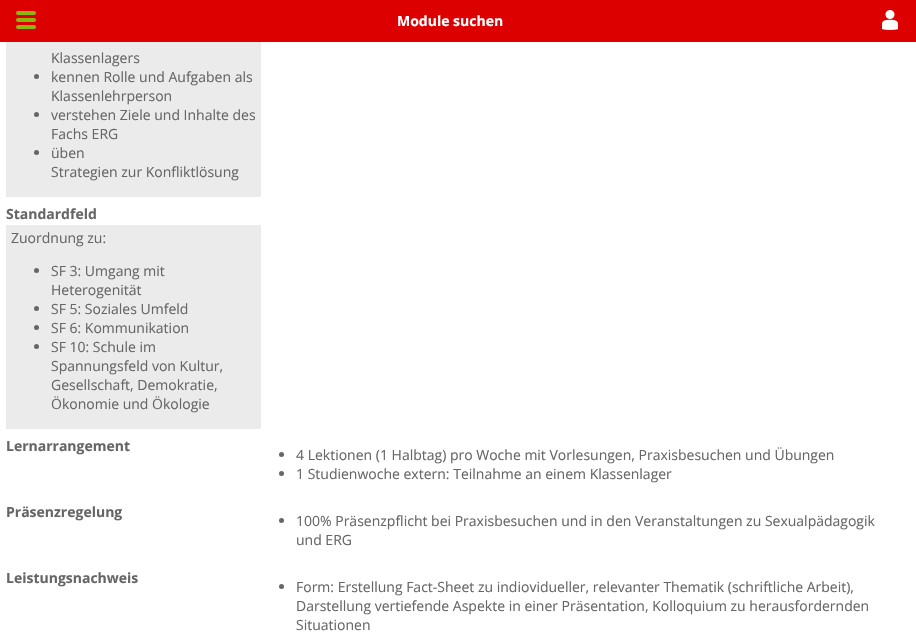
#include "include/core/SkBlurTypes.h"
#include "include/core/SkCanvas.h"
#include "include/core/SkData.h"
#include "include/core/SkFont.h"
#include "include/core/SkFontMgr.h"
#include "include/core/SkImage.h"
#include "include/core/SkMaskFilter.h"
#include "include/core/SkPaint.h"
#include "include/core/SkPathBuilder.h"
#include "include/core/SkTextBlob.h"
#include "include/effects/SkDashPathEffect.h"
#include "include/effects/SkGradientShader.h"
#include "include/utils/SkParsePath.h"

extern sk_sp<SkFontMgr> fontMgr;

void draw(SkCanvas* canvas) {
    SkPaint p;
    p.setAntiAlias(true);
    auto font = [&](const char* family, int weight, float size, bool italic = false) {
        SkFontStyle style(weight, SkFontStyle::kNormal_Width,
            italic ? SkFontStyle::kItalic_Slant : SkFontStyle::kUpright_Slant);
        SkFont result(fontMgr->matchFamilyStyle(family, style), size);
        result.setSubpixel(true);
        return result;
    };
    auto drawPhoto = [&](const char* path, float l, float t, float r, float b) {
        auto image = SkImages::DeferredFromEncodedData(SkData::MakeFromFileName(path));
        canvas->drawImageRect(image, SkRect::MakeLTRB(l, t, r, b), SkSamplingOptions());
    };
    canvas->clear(0xFFFFFFFF);
    p.setColor(0xFFDD0000);
    canvas->drawRect(SkRect::MakeLTRB(0, 0, 916, 42), p);
    p.setStyle(SkPaint::kStroke_Style);
    p.setStrokeWidth(4);
    p.setStrokeCap(SkPaint::kRound_Cap);
    p.setColor(0xFF8CB80D);
    canvas->drawPath(SkPathBuilder().moveTo(18, 13).lineTo(34, 13).moveTo(18, 20).lineTo(34, 20).moveTo(18, 27).lineTo(34, 27).detach(), p);
    auto font1 = font("Open Sans", 700, 14);
    p.setStyle(SkPaint::kFill_Style);
    p.setColor(0xFFFFFFFF);
    canvas->drawString("Module suchen", 397, 26, font1, p);
    drawPhoto("media/1.png", 882, 10, 898, 30);
    p.setColor(0xFFEBEBEB);
    canvas->drawRect(SkRect::MakeLTRB(6, 42, 261, 197), p);
    auto font2 = font("Open Sans", 400, 14);
    p.setColor(0xFF666666);
    canvas->drawString("Klassenlagers", 51, 63, font2, p);
    canvas->drawCircle(36.5f, 76.5f, 2.5f, p);
    canvas->drawString("kennen Rolle und Aufgaben als", 51, 82, font2, p);
    canvas->drawString("Klassenlehrperson", 51, 101, font2, p);
    canvas->drawCircle(36.5f, 114.5f, 2.5f, p);
    canvas->drawString("verstehen Ziele und Inhalte des", 51, 120, font2, p);
    canvas->drawString("Fachs ERG", 51, 139, font2, p);
    canvas->drawCircle(36.5f, 152.5f, 2.5f, p);
    canvas->drawString("üben", 51, 158, font2, p);
    canvas->drawString("Strategien zur Konfliktlösung", 51, 177, font2, p);
    canvas->drawString("Standardfeld", 6, 219, font1, p);
    p.setColor(0xFFEBEBEB);
    canvas->drawRect(SkRect::MakeLTRB(6, 225, 261, 429), p);
    p.setColor(0xFF666666);
    canvas->drawString("Zuordnung zu:", 11, 243, font2, p);
    canvas->drawCircle(36.5f, 270.5f, 2.5f, p);
    canvas->drawString("SF 3: Umgang mit", 51, 276, font2, p);
    canvas->drawString("Heterogenität", 51, 295, font2, p);
    canvas->drawCircle(36.5f, 308.5f, 2.5f, p);
    canvas->drawString("SF 5: Soziales Umfeld", 51, 314, font2, p);
    canvas->drawCircle(36.5f, 327.5f, 2.5f, p);
    canvas->drawString("SF 6: Kommunikation", 51, 333, font2, p);
    canvas->drawCircle(36.5f, 346.5f, 2.5f, p);
    {
        const struct { const char* s; float x, y; } items[] = {
            {"SF 10: Schule im", 51, 352},
            {"Spannungsfeld von Kultur,", 51, 371},
            {"Gesellschaft, Demokratie,", 51, 390},
            {"Ökonomie und Ökologie", 51, 409},
        };
        for (auto [s, x, y] : items) {
            canvas->drawString(s, x, y, font2, p);
        }
    }
    canvas->drawString("Lernarrangement", 6, 451, font1, p);
    canvas->drawCircle(281.5f, 454.5f, 2.5f, p);
    canvas->drawString("4 Lektionen (1 Halbtag) pro Woche mit Vorlesungen, Praxisbesuchen und Übungen", 296, 460, font2, p);
    canvas->drawCircle(281.5f, 473.5f, 2.5f, p);
    canvas->drawString("1 Studienwoche extern: Teilnahme an einem Klassenlager", 296, 479, font2, p);
    canvas->drawString("Präsenzregelung", 6, 517, font1, p);
    canvas->drawCircle(281.5f, 520.5f, 2.5f, p);
    canvas->drawString("100% Präsenzpflicht bei Praxisbesuchen und in den Veranstaltungen zu Sexualpädagogik", 296, 526, font2, p);
    canvas->drawString("und ERG", 296, 545, font2, p);
    canvas->drawString("Leistungsnachweis", 6, 583, font1, p);
    canvas->drawCircle(281.5f, 586.5f, 2.5f, p);
    {
        const struct { const char* s; float x, y; } items[] = {
            {"Form: Erstellung Fact-Sheet zu indiovidueller, relevanter Thematik (schriftliche Arbeit),", 296, 592},
            {"Darstellung vertiefende Aspekte in einer Präsentation, Kolloquium zu herausfordernden", 296, 611},
            {"Situationen", 296, 630},
        };
        for (auto [s, x, y] : items) {
            canvas->drawString(s, x, y, font2, p);
        }
    }
}
